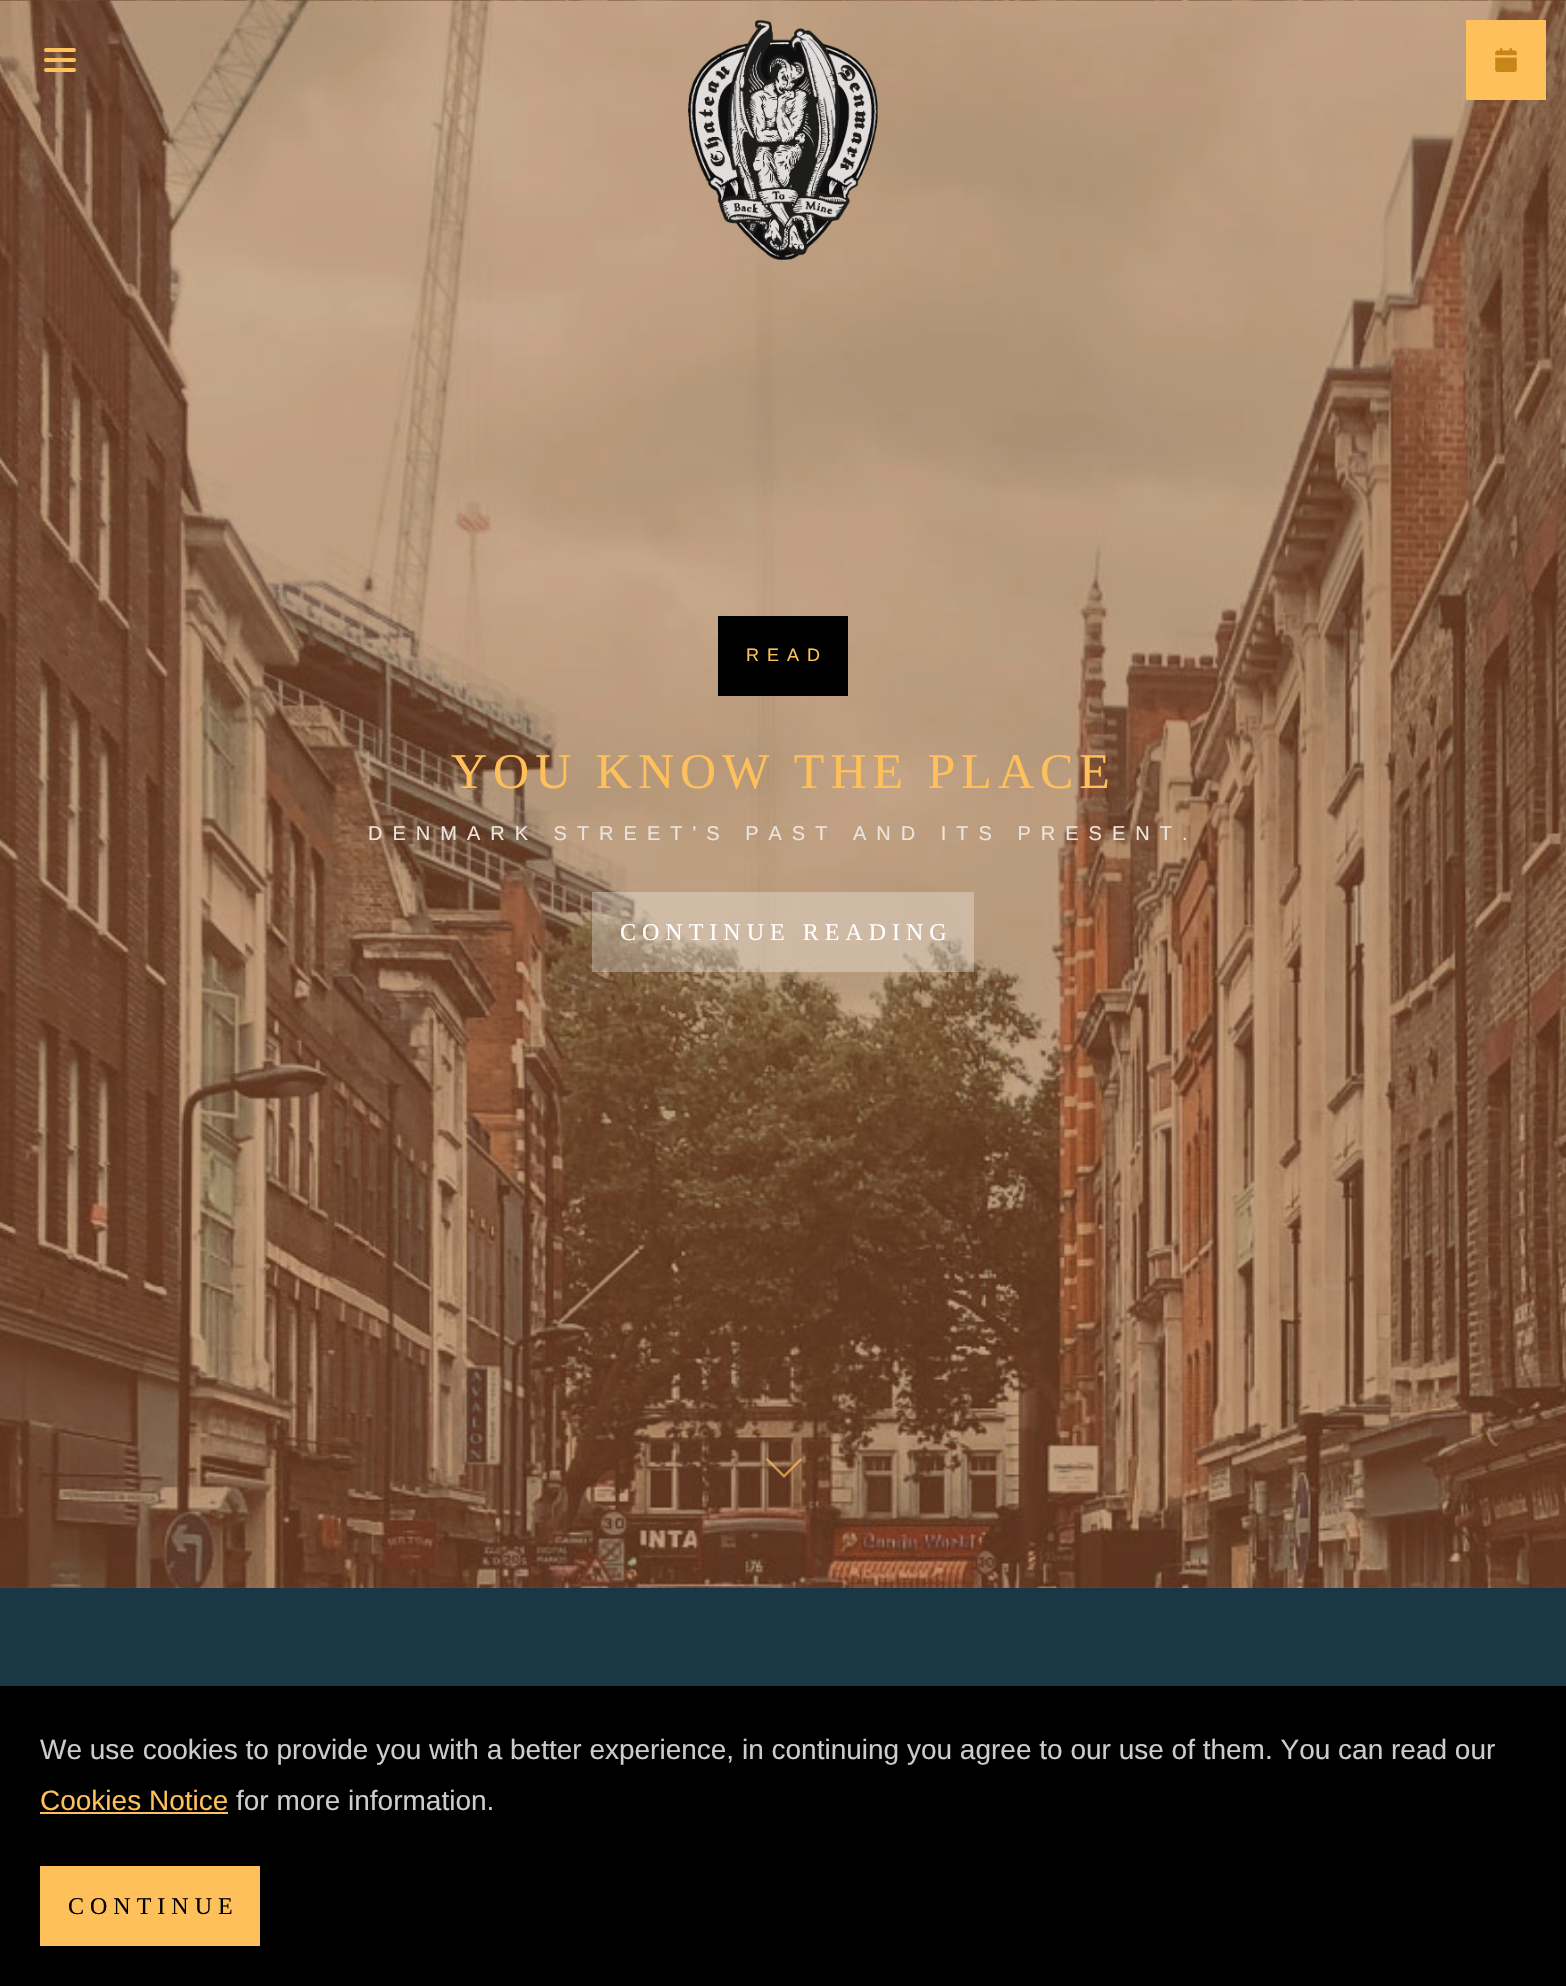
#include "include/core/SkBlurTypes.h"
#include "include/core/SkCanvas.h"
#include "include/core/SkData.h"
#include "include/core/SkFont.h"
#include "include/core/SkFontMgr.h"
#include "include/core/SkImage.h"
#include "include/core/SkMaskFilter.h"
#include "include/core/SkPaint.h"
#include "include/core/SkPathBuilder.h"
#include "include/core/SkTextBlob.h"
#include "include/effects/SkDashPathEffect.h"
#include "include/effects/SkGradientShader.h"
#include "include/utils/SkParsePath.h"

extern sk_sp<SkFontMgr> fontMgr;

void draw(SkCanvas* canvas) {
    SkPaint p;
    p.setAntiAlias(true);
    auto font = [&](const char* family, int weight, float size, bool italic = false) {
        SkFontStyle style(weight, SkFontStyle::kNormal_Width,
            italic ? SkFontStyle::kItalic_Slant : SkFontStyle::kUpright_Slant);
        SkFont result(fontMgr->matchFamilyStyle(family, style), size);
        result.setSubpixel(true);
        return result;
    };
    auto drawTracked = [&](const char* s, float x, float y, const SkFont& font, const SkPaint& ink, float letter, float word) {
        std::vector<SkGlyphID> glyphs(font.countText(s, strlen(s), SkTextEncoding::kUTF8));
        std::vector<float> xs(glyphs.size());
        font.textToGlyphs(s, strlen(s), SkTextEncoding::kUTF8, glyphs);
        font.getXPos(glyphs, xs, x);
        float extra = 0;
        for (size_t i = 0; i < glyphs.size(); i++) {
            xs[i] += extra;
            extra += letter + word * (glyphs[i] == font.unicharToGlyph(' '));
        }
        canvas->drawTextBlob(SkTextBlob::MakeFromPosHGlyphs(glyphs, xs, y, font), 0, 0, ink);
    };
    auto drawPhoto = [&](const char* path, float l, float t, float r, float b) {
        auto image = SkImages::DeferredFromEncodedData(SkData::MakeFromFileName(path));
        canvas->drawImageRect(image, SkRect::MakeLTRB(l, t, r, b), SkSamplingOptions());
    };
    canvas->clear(0xFF193744);
    drawPhoto("media/3.png", 0, 0, 1566, 1588);
    p.setColor(0xFFFEC05A);
    canvas->drawRoundRect(SkRect::MakeLTRB(44, 48, 76, 52), 2, 2, p);
    canvas->drawRoundRect(SkRect::MakeLTRB(44, 58, 76, 62), 2, 2, p);
    canvas->drawRoundRect(SkRect::MakeLTRB(44, 68, 76, 72), 2, 2, p);
    drawPhoto("media/1.png", 688, 20, 878, 260);
    canvas->drawRect(SkRect::MakeLTRB(1466, 20, 1546, 100), p);
    drawPhoto("media/2.png", 1495, 48, 1517, 72);
    p.setColor(0xFF000000);
    canvas->drawRect(SkRect::MakeLTRB(718, 616, 848, 696), p);
    auto font1 = font("Liberation Sans", 400, 18);
    p.setColor(0xFFFEC05A);
    drawTracked("READ", 746, 661, font1, p, 8, 0);
    auto font2 = font("Liberation Serif", 400, 50);
    drawTracked("YOU KNOW THE PLACE", 451, 788, font2, p, 6, 0);
    auto font3 = font("Liberation Sans", 400, 20);
    p.setColor(0xFFECE4DD);
    drawTracked("DENMARK STREET'S PAST AND ITS PRESENT.", 368, 840, font3, p, 10, 0);
    p.setColor(0x4DFFFFFF);
    canvas->drawRect(SkRect::MakeLTRB(592, 892, 974, 972), p);
    auto font4 = font("Liberation Serif", 400, 24);
    p.setColor(0xFFFFFFFF);
    drawTracked("CONTINUE READING", 620, 940, font4, p, 6, 0);
    p.setColor(0xB3FEC05A);
    canvas->drawPath(SkPathBuilder().moveTo(766, 1460).lineTo(767.5f, 1458).lineTo(784, 1474.5f).lineTo(800.5f, 1458).lineTo(802, 1460).lineTo(784, 1478).close().detach(), p);
    p.setColor(0xFF000000);
    canvas->drawRect(SkRect::MakeLTRB(0, 1686, 1566, 1986), p);
    auto font5 = font("Liberation Sans", 400, 28);
    p.setColor(0xFFCCCCCC);
    canvas->drawString("We use cookies to provide you with a better experience, in continuing you agree to our use of them. You can read our", 40, 1759, font5, p);
    p.setColor(0xFFFEC05A);
    canvas->drawString("Cookies Notice", 40, 1810, font5, p);
    canvas->drawRect(SkRect::MakeLTRB(40, 1812, 228, 1814), p);
    p.setColor(0xFFCCCCCC);
    canvas->drawString("for more information.", 236, 1810, font5, p);
    p.setColor(0xFFFEC05A);
    canvas->drawRect(SkRect::MakeLTRB(40, 1866, 260, 1946), p);
    p.setColor(0xFF000000);
    drawTracked("CONTINUE", 68, 1914, font4, p, 6, 0);
}
